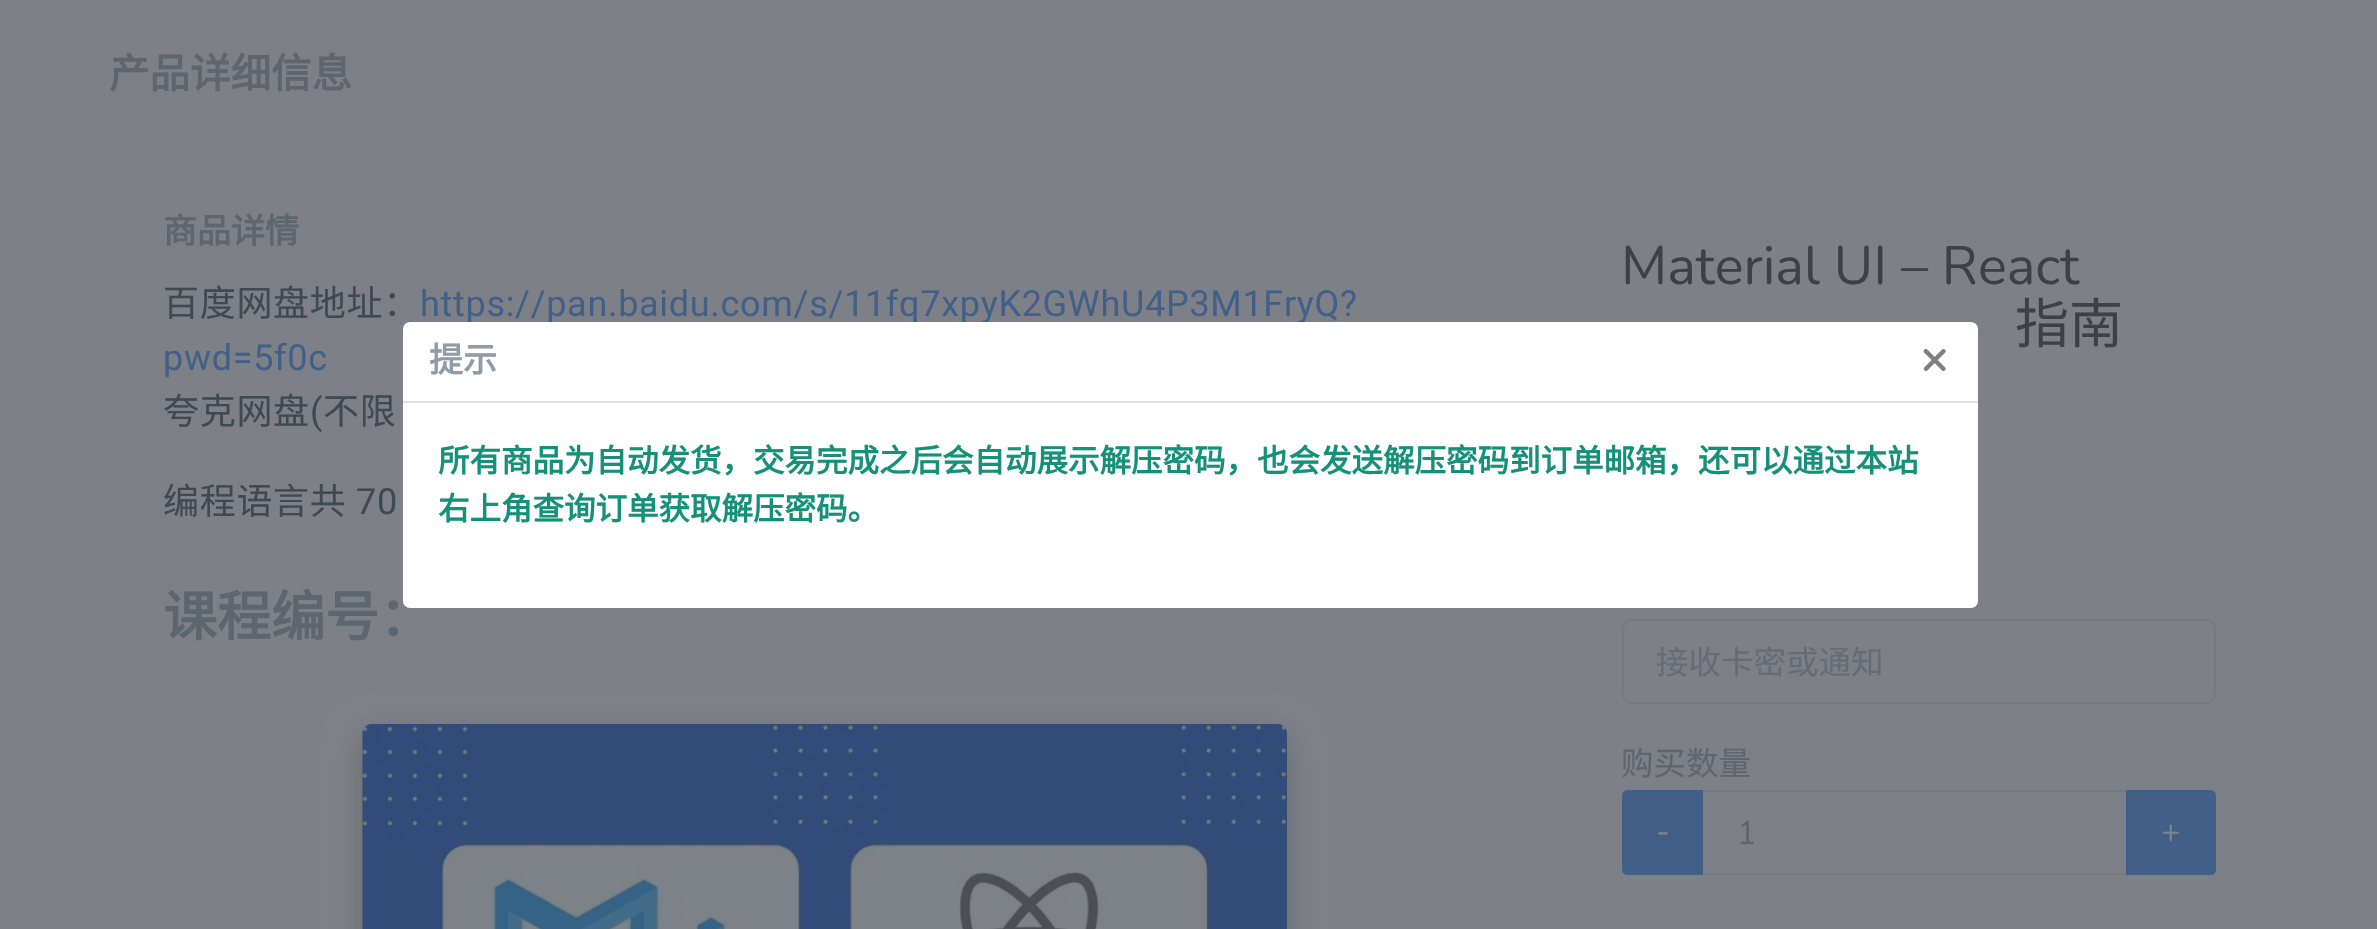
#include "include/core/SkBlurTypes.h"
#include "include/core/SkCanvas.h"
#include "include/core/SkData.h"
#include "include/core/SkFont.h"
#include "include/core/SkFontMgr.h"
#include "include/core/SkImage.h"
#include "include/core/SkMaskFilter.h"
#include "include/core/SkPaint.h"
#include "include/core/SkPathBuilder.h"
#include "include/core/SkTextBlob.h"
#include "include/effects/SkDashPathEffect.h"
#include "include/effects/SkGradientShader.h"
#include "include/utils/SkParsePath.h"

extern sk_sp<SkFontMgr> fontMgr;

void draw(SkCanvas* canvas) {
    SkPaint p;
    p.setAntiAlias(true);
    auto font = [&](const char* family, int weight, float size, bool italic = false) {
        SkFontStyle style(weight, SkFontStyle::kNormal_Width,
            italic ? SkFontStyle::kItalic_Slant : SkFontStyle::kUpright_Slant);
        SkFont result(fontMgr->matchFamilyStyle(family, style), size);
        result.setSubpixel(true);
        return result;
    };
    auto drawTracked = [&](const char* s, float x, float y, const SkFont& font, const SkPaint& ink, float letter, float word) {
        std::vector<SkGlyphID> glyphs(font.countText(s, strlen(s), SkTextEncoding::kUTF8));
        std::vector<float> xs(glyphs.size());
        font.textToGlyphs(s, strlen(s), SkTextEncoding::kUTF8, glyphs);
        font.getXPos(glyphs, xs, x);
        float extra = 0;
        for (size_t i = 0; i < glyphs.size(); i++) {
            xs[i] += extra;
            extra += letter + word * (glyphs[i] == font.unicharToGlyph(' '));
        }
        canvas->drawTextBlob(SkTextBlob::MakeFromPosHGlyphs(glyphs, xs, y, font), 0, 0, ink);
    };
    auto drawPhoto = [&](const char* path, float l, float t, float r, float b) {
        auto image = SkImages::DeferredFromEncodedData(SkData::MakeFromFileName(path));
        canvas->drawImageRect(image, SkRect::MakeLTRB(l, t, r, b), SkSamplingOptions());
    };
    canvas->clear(0xFF7D8187);
    auto font1 = font("Noto Sans CJK SC", 700, 40.5f);
    p.setColor(0xFF5D656E);
    canvas->drawString("产品详细信息", 109, 88, font1, p);
    auto font2 = font("Noto Sans CJK SC", 700, 34);
    canvas->drawString("商品详情", 163, 243, font2, p);
    auto font3 = font("Noto Sans CJK SC", 400, 36);
    p.setColor(0xFF3F4954);
    drawTracked("百度网盘地址：", 163, 316, font3, p, 0.7f, 0);
    auto font4 = font("Roboto", 400, 36);
    p.setColor(0xFF425F88);
    drawTracked("https://pan.baidu.com/s/11fq7xpyK2GWhU4P3M1FryQ?", 420, 316, font4, p, 0.7f, 0);
    drawTracked("pwd=5f0c", 163, 370, font4, p, 0.7f, 0);
    p.setColor(0xFF3F4954);
    drawTracked("夸克网盘", 163, 424, font3, p, 0.7f, 0);
    drawTracked("(", 310, 424, font4, p, 0.7f, 0);
    drawTracked("不限", 323, 424, font3, p, 0.7f, 0);
    drawTracked("编程语言共", 163, 514, font3, p, 0.7f, 0);
    drawTracked("70", 356, 514, font4, p, 0.7f, 0);
    auto font5 = font("Noto Sans CJK SC", 700, 54);
    p.setColor(0xFF5D656E);
    canvas->drawString("课程编号：", 163, 636, font5, p);
    p.setColor(0x2632363C);
    p.setMaskFilter(SkMaskFilter::MakeBlur(kNormal_SkBlurStyle, 17));
    canvas->drawRoundRect(SkRect::MakeLTRB(362, 734, 1287, 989), 9, 9, p);
    p.setMaskFilter(nullptr);
    p.setColor(0x2E32363C);
    p.setMaskFilter(SkMaskFilter::MakeBlur(kNormal_SkBlurStyle, 12.5f));
    canvas->drawRoundRect(SkRect::MakeLTRB(362, 736, 1287, 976), 9, 9, p);
    p.setMaskFilter(nullptr);
    drawPhoto("media/1.png", 362, 724, 1287, 929);
    auto font6 = font("Nunito", 400, 54);
    p.setColor(0xFF3C4149);
    canvas->drawString("Material UI – React", 1621, 284, font6, p);
    auto font7 = font("Noto Sans CJK SC", 400, 54);
    canvas->drawString("指南", 2015, 343, font7, p);
    p.setStyle(SkPaint::kStroke_Style);
    p.setStrokeWidth(2);
    p.setColor(0xFF747A81);
    canvas->drawRoundRect(SkRect::MakeLTRB(1623, 620, 2215, 703), 8, 8, p);
    auto font8 = font("Noto Sans CJK SC", 400, 32.5f);
    p.setStyle(SkPaint::kFill_Style);
    p.setColor(0xFF666C75);
    canvas->drawString("接收卡密或通知", 1656, 674, font8, p);
    p.setColor(0xFF5D656E);
    canvas->drawString("购买数量", 1621, 775, font8, p);
    p.setStyle(SkPaint::kStroke_Style);
    p.setColor(0xFF747A81);
    canvas->drawRect(SkRect::MakeLTRB(1702, 791, 2128, 874), p);
    p.setStyle(SkPaint::kFill_Style);
    p.setColor(0xFF425F88);
    canvas->drawPath(SkPathBuilder().moveTo(1628, 791).lineTo(1702, 791).lineTo(1702, 874).lineTo(1628, 874).cubicTo(1625, 874, 1623, 872, 1623, 869).lineTo(1623, 796).cubicTo(1623, 793, 1625, 791, 1628, 791).close().detach(), p);
    p.setStyle(SkPaint::kStroke_Style);
    canvas->drawPath(SkPathBuilder().moveTo(1628, 791).lineTo(1702, 791).lineTo(1702, 874).lineTo(1628, 874).cubicTo(1625, 874, 1623, 872, 1623, 869).lineTo(1623, 796).cubicTo(1623, 793, 1625, 791, 1628, 791).close().detach(), p);
    auto font9 = font("Nunito", 400, 32.5f);
    p.setStyle(SkPaint::kFill_Style);
    p.setColor(0xFF7E8289);
    canvas->drawString("-", 1656, 842, font9, p);
    p.setColor(0xFF5D656E);
    canvas->drawString("1", 1737, 844, font9, p);
    p.setColor(0xFF425F88);
    canvas->drawPath(SkPathBuilder().moveTo(2127, 791).lineTo(2210, 791).cubicTo(2213, 791, 2215, 793, 2215, 796).lineTo(2215, 869).cubicTo(2215, 872, 2213, 874, 2210, 874).lineTo(2127, 874).close().detach(), p);
    p.setStyle(SkPaint::kStroke_Style);
    canvas->drawPath(SkPathBuilder().moveTo(2127, 791).lineTo(2210, 791).cubicTo(2213, 791, 2215, 793, 2215, 796).lineTo(2215, 869).cubicTo(2215, 872, 2213, 874, 2210, 874).lineTo(2127, 874).close().detach(), p);
    p.setStyle(SkPaint::kFill_Style);
    p.setColor(0xFF7E8289);
    canvas->drawString("+", 2161, 842, font9, p);
    p.setColor(0xFFFFFFFF);
    canvas->drawRoundRect(SkRect::MakeLTRB(403, 322, 1978, 608), 7, 7, p);
    p.setColor(0xFFDEE2E6);
    canvas->drawRect(SkRect::MakeLTRB(403, 401, 1978, 403), p);
    p.setColor(0xFF919CA7);
    canvas->drawString("提示", 429, 372, font2, p);
    auto font10 = font("Nunito", 700, 49);
    p.setColor(0xFF808080);
    canvas->drawString("×", 1920, 374, font10, p);
    auto font11 = font("Noto Sans CJK SC", 700, 31.5f);
    p.setColor(0xFF169179);
    canvas->drawString("所有商品为自动发货，交易完成之后会自动展示解压密码，也会发送解压密码到订单邮箱，还可以通过本站", 438, 472, font11, p);
    canvas->drawString("右上角查询订单获取解压密码。", 438, 520, font11, p);
}
